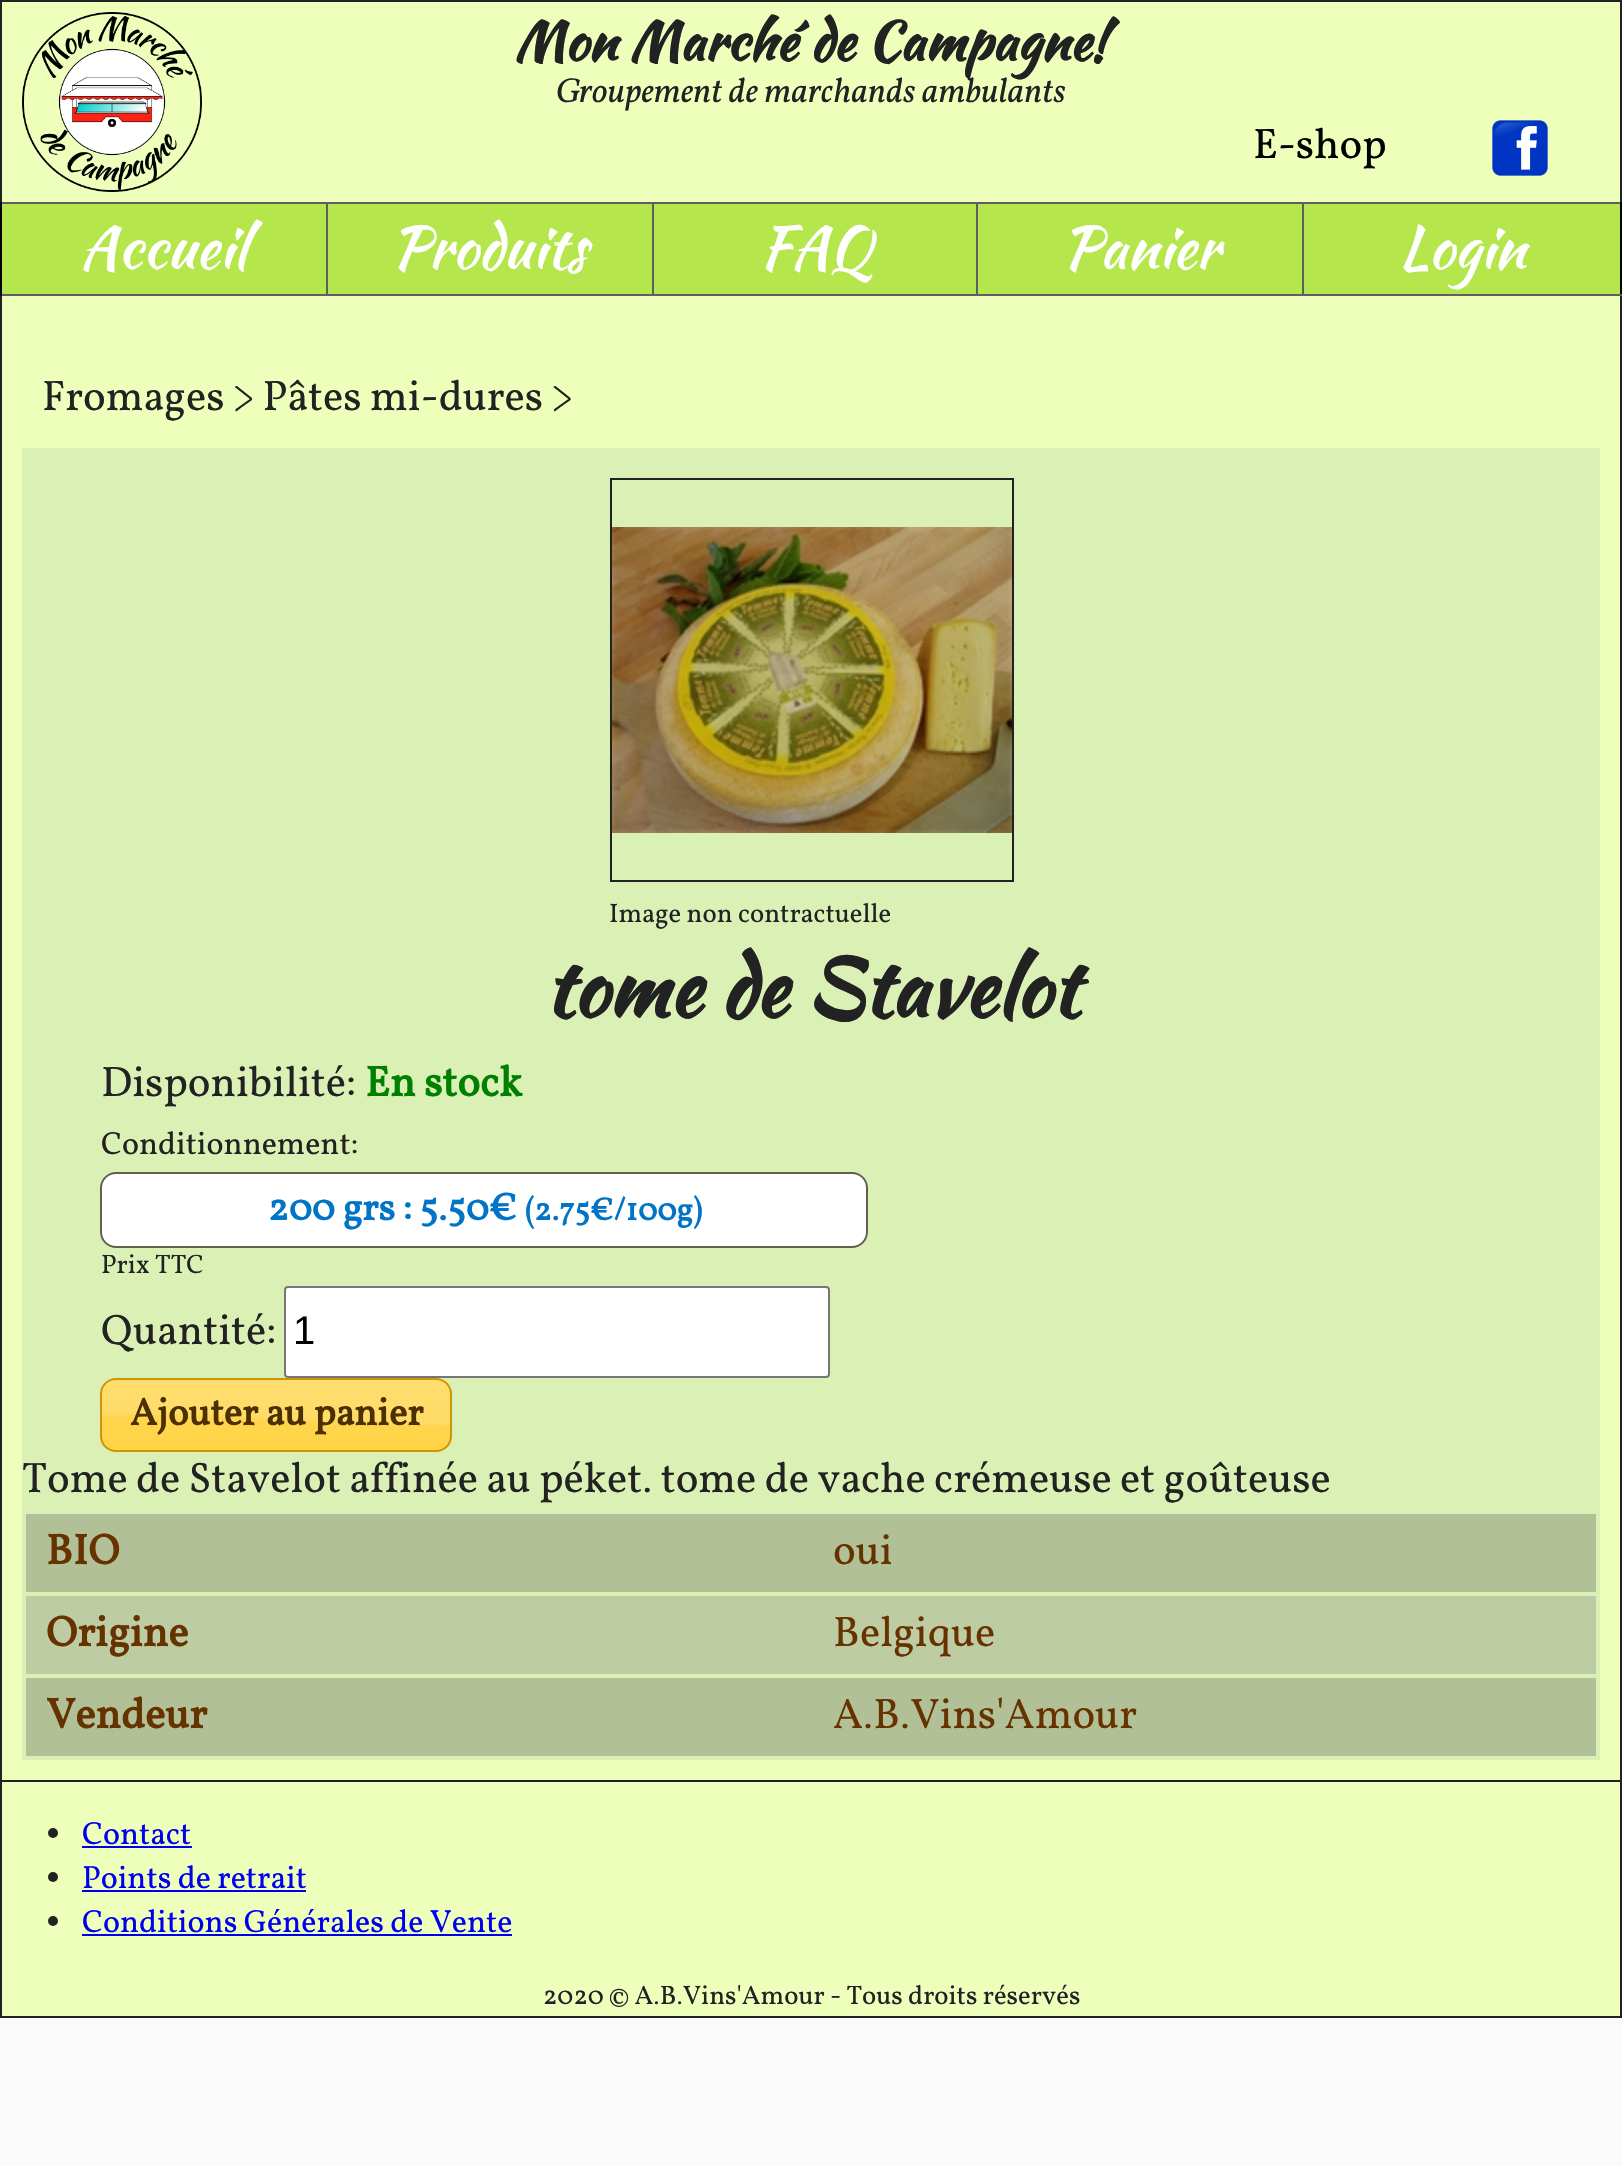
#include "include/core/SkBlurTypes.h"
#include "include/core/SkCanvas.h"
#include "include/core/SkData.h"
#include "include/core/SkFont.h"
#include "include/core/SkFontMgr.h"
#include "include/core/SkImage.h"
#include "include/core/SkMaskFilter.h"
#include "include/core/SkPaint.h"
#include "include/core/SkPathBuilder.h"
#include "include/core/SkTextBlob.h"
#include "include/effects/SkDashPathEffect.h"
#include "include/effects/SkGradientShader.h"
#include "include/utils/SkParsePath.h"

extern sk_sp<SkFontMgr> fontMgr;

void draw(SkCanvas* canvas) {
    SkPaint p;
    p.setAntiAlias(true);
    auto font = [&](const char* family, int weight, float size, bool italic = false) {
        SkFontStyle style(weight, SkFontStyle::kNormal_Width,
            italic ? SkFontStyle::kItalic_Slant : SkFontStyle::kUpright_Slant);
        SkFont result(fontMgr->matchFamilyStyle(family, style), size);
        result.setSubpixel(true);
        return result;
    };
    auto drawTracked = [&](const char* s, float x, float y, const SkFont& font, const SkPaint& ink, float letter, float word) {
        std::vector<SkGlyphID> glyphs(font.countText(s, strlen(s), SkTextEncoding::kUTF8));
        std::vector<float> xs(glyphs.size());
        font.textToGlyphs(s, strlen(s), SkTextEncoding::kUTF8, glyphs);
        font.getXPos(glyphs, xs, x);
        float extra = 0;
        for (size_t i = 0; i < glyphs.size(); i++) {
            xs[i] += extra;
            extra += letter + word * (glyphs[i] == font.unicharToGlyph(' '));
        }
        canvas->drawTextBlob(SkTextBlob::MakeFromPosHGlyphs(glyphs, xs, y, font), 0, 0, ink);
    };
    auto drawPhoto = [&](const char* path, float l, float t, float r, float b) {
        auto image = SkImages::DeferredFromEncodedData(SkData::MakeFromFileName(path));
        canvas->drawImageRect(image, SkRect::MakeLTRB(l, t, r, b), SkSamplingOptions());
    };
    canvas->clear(0xFFFAFAFA);
    p.setColor(0xFFEEFFBB);
    canvas->drawRect(SkRect::MakeLTRB(1, 1, 1621, 2017), p);
    p.setStyle(SkPaint::kStroke_Style);
    p.setStrokeWidth(2);
    p.setColor(0xFF222222);
    canvas->drawRect(SkRect::MakeLTRB(1, 1, 1621, 2017), p);
    drawPhoto("media/1.png", 22, 12, 202, 192);
    auto font1 = font("Kaushan Script", 700, 53.25f);
    p.setStyle(SkPaint::kFill_Style);
    canvas->drawString("Mon Marché de Campagne!", 514, 60, font1, p);
    auto font2 = font("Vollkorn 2", 400, 34.7f);
    canvas->drawString("Groupement de marchands ambulants", 556, 102, font2, p);
    auto font3 = font("Vollkorn", 400, 42.7f);
    p.setColor(0xFF000000);
    canvas->drawString("E-shop", 1253, 158, font3, p);
    drawPhoto("media/2.png", 1492, 120, 1548, 176);
    {
        const struct { float l, t, r, b; SkColor color; } items[] = {
            {2, 204, 326, 294, 0xFFB5E64C},
            {0, 202, 328, 204, 0xFF606060},
            {0, 294, 328, 296, 0xFF606060},
            {0, 202, 2, 296, 0xFF000000},
        };
        for (auto [l, t, r, b, color] : items) {
            p.setColor(color);
            canvas->drawRect(SkRect::MakeLTRB(l, t, r, b), p);
        }
    }
    auto font4 = font("Kaushan Script", 400, 58.5f);
    p.setColor(0xFFFFFFFF);
    canvas->drawString("Accueil", 80, 268, font4, p);
    p.setColor(0xFFB5E64C);
    canvas->drawRect(SkRect::MakeLTRB(327, 203, 653, 295), p);
    p.setStyle(SkPaint::kStroke_Style);
    p.setColor(0xFF606060);
    canvas->drawRect(SkRect::MakeLTRB(327, 203, 653, 295), p);
    p.setStyle(SkPaint::kFill_Style);
    p.setColor(0xFFFFFFFF);
    canvas->drawString("Produits", 391, 268, font4, p);
    p.setColor(0xFFB5E64C);
    canvas->drawRect(SkRect::MakeLTRB(653, 203, 977, 295), p);
    p.setStyle(SkPaint::kStroke_Style);
    p.setColor(0xFF606060);
    canvas->drawRect(SkRect::MakeLTRB(653, 203, 977, 295), p);
    p.setStyle(SkPaint::kFill_Style);
    p.setColor(0xFFFFFFFF);
    canvas->drawString("FAQ", 759, 268, font4, p);
    p.setColor(0xFFB5E64C);
    canvas->drawRect(SkRect::MakeLTRB(977, 203, 1303, 295), p);
    p.setStyle(SkPaint::kStroke_Style);
    p.setColor(0xFF606060);
    canvas->drawRect(SkRect::MakeLTRB(977, 203, 1303, 295), p);
    p.setStyle(SkPaint::kFill_Style);
    p.setColor(0xFFFFFFFF);
    canvas->drawString("Panier", 1062, 268, font4, p);
    {
        const struct { float l, t, r, b; SkColor color; } items[] = {
            {1304, 204, 1620, 294, 0xFFB5E64C},
            {1302, 202, 1622, 204, 0xFF606060},
            {1620, 202, 1622, 296, 0xFF000000},
            {1302, 294, 1622, 296, 0xFF606060},
        };
        for (auto [l, t, r, b, color] : items) {
            p.setColor(color);
            canvas->drawRect(SkRect::MakeLTRB(l, t, r, b), p);
        }
    }
    p.setColor(0xFFFFFFFF);
    canvas->drawString("Login", 1399, 268, font4, p);
    p.setColor(0xFF222222);
    canvas->drawString("Fromages > Pâtes mi-dures >", 42, 410, font3, p);
    p.setColor(0xFFDBF0B5);
    canvas->drawRect(SkRect::MakeLTRB(22, 448, 1600, 1760), p);
    p.setStyle(SkPaint::kStroke_Style);
    p.setColor(0xFF222222);
    canvas->drawRect(SkRect::MakeLTRB(611, 479, 1013, 881), p);
    drawPhoto("media/3.png", 612, 527, 1012, 833);
    auto font5 = font("Vollkorn", 400, 26.7f);
    p.setStyle(SkPaint::kFill_Style);
    canvas->drawString("Image non contractuelle", 609, 922, font5, p);
    auto font6 = font("Kaushan Script", 700, 80);
    canvas->drawString("tome de Stavelot", 544, 1016, font6, p);
    canvas->drawString("Disponibilité:", 101, 1096, font3, p);
    auto font7 = font("Vollkorn", 700, 42.7f);
    p.setColor(0xFF008000);
    canvas->drawString("En stock", 365, 1096, font7, p);
    auto font8 = font("Vollkorn", 400, 32);
    p.setColor(0xFF222222);
    canvas->drawString("Conditionnement:", 101, 1154, font8, p);
    drawPhoto("media/4.png", 100, 1172, 868, 1248);
    p.setStyle(SkPaint::kStroke_Style);
    p.setColor(0xFF655E4E);
    canvas->drawRoundRect(SkRect::MakeLTRB(101, 1173, 867, 1247), 15, 15, p);
    auto font9 = font("Vollkorn", 700, 38.5f);
    p.setStyle(SkPaint::kFill_Style);
    p.setColor(0xFF0074C7);
    canvas->drawString("200 grs : 5.50€", 268, 1220, font9, p);
    auto font10 = font("Vollkorn", 700, 32);
    canvas->drawString("(2.75€/100g)", 525, 1220, font10, p);
    p.setColor(0xFF222222);
    canvas->drawString("Prix TTC", 101, 1273, font5, p);
    canvas->drawString("Quantité:", 101, 1344, font3, p);
    p.setColor(0xFFFFFFFF);
    canvas->drawRoundRect(SkRect::MakeLTRB(285, 1287, 829, 1377), 3, 3, p);
    p.setStyle(SkPaint::kStroke_Style);
    p.setColor(0xFF767676);
    canvas->drawRoundRect(SkRect::MakeLTRB(285, 1287, 829, 1377), 3, 3, p);
    auto font11 = font("Liberation Sans", 400, 40);
    p.setStyle(SkPaint::kFill_Style);
    p.setColor(0xFF000000);
    canvas->drawString("1", 293, 1344, font11, p);
    drawPhoto("media/5.png", 100, 1378, 452, 1452);
    p.setStyle(SkPaint::kStroke_Style);
    p.setColor(0xFFD19405);
    canvas->drawRoundRect(SkRect::MakeLTRB(101, 1379, 451, 1451), 15, 15, p);
    p.setStyle(SkPaint::kFill_Style);
    p.setColor(0xFF4C3000);
    canvas->drawString("Ajouter au panier", 130, 1425, font9, p);
    p.setColor(0xFF222222);
    drawTracked("Tome de Stavelot affinée au péket. tome de vache crémeuse et goûteuse", 22, 1492, font3, p, 0, -0.25f);
    p.setColor(0xFFB2C097);
    canvas->drawRect(SkRect::MakeLTRB(26, 1514, 1596, 1592), p);
    p.setColor(0xFF663300);
    canvas->drawString("BIO", 46, 1564, font7, p);
    canvas->drawString("oui", 833, 1564, font3, p);
    p.setColor(0xFFBECCA3);
    canvas->drawRect(SkRect::MakeLTRB(26, 1596, 1596, 1674), p);
    p.setColor(0xFF663300);
    canvas->drawString("Origine", 46, 1646, font7, p);
    canvas->drawString("Belgique", 833, 1646, font3, p);
    p.setColor(0xFFB2C097);
    canvas->drawRect(SkRect::MakeLTRB(26, 1678, 1596, 1756), p);
    p.setColor(0xFF663300);
    canvas->drawString("Vendeur", 46, 1728, font7, p);
    canvas->drawString("A.B.Vins'Amour", 833, 1728, font3, p);
    p.setColor(0xFF222222);
    canvas->drawRect(SkRect::MakeLTRB(2, 1780, 1620, 1782), p);
    canvas->drawCircle(53, 1833, 5, p);
    p.setColor(0xFF0000EE);
    canvas->drawString("Contact", 82, 1844, font8, p);
    canvas->drawRect(SkRect::MakeLTRB(82, 1846, 192, 1848), p);
    p.setColor(0xFF222222);
    canvas->drawCircle(53, 1877, 5, p);
    p.setColor(0xFF0000EE);
    canvas->drawString("Points de retrait", 82, 1888, font8, p);
    canvas->drawRect(SkRect::MakeLTRB(82, 1890, 306, 1892), p);
    p.setColor(0xFF222222);
    canvas->drawCircle(53, 1921, 5, p);
    p.setColor(0xFF0000EE);
    canvas->drawString("Conditions Générales de Vente", 82, 1932, font8, p);
    canvas->drawRect(SkRect::MakeLTRB(82, 1934, 512, 1936), p);
    p.setColor(0xFF222222);
    canvas->drawString("2020 © A.B.Vins'Amour - Tous droits réservés", 543, 2004, font5, p);
}
